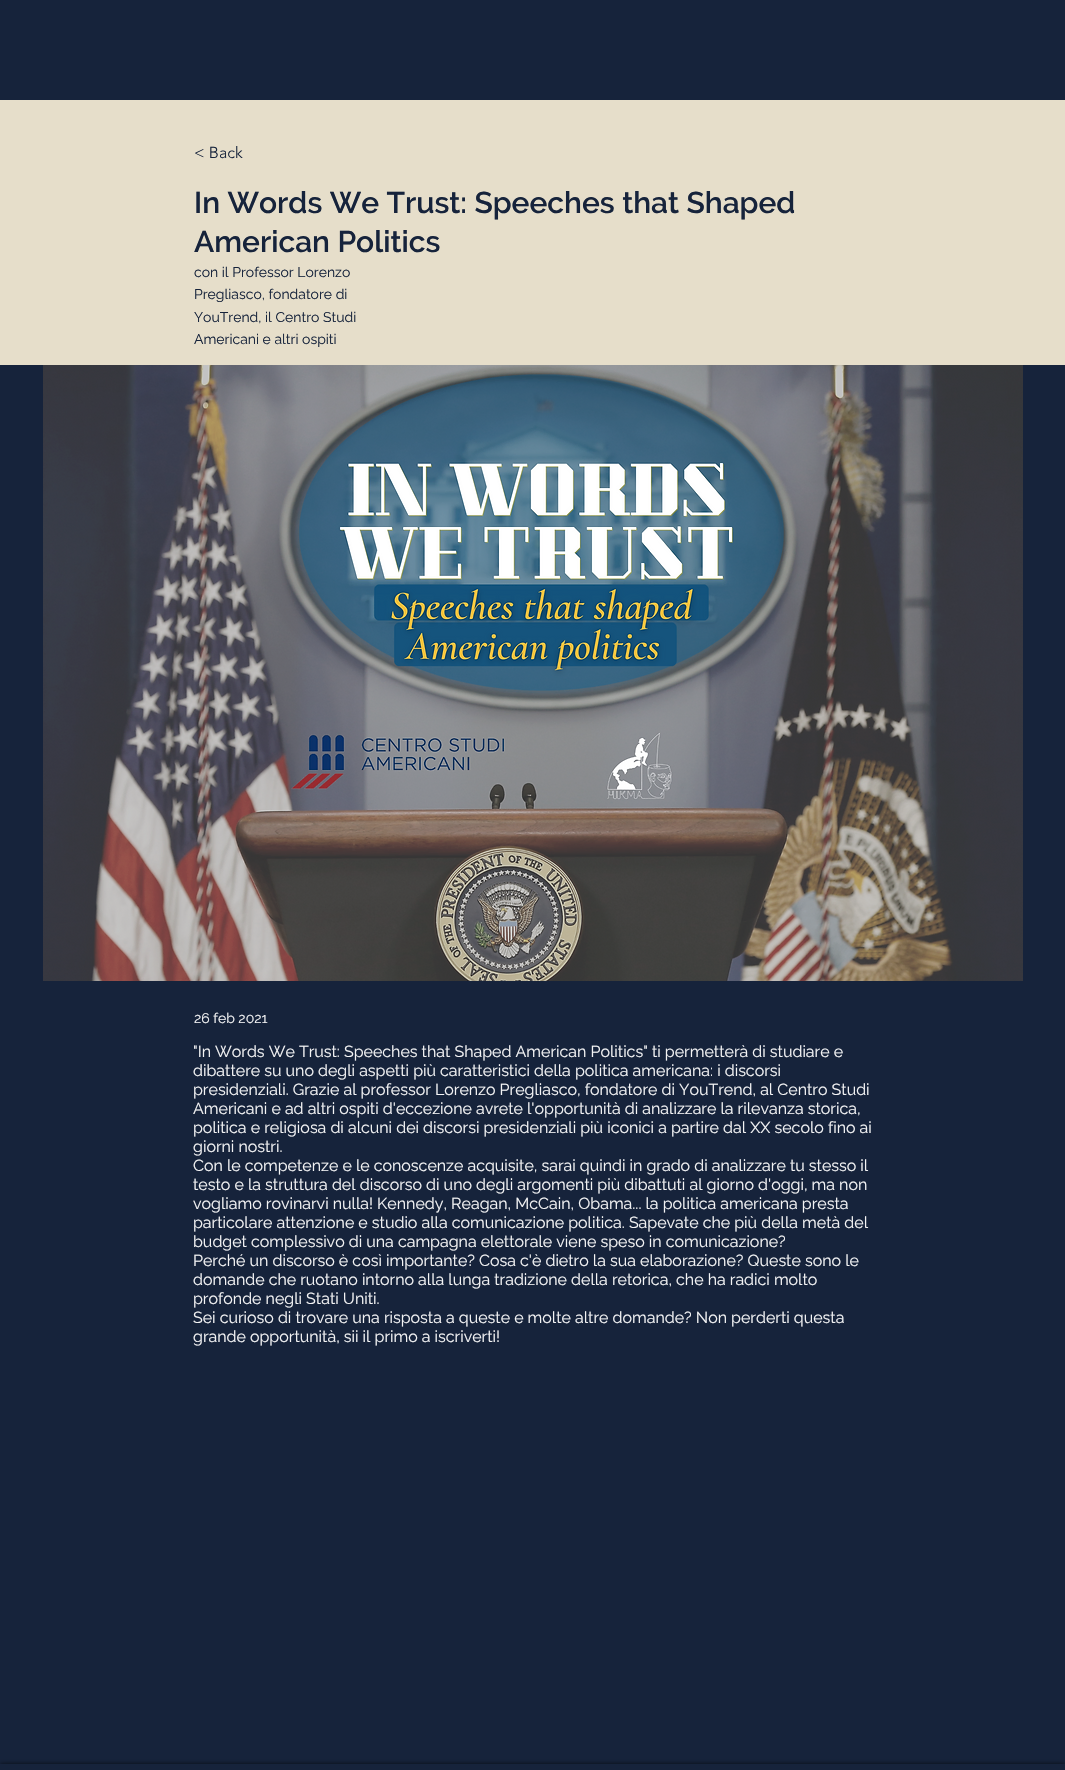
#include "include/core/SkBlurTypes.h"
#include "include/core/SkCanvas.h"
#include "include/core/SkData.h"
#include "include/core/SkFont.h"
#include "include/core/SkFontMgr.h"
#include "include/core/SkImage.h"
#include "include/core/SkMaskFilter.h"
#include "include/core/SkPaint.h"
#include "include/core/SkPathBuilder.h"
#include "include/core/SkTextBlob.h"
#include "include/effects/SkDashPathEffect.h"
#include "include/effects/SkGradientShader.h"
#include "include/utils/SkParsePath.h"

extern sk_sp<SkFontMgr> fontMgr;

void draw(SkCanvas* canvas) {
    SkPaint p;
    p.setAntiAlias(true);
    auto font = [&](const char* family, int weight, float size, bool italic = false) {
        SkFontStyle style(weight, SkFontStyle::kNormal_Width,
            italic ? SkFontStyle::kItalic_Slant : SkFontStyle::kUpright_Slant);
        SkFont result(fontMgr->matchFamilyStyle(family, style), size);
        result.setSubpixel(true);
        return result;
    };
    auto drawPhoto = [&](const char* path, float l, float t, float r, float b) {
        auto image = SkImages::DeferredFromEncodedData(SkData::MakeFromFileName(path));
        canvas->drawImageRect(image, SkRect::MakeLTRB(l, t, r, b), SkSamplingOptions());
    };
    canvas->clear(0xFF16233B);
    p.setColor(0xFFE6DECA);
    canvas->drawRect(SkRect::MakeLTRB(0, 100, 1065, 365), p);
    auto font1 = font("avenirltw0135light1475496", 300, 16);
    p.setColor(0xFF16233B);
    canvas->drawString("< Back", 194, 158, font1, p);
    auto font2 = font("Raleway", 600, 30);
    canvas->drawString("In Words We Trust: Speeches that Shaped", 194, 213, font2, p);
    canvas->drawString("American Politics", 194, 252, font2, p);
    auto font3 = font("Raleway", 400, 14);
    {
        const struct { const char* s; float x, y; } items[] = {
            {"con il Professor Lorenzo", 194, 277},
            {"Pregliasco, fondatore di", 194, 299},
            {"YouTrend, il Centro Studi", 194, 322},
            {"Americani e altri ospiti", 194, 344},
        };
        for (auto [s, x, y] : items) {
            canvas->drawString(s, x, y, font3, p);
        }
    }
    drawPhoto("media/1.png", 43, 365, 1023, 981);
    p.setColor(0xFFF4F4F5);
    canvas->drawString("26 feb 2021", 194, 1023, font3, p);
    auto font4 = font("Raleway", 400, 16);
    {
        const struct { const char* s; float x, y; } items[] = {
            {"\"In Words We Trust: Speeches that Shaped American Politics\" ti permetterà di studiare e", 193, 1057},
            {"dibattere su uno degli aspetti più caratteristici della politica americana: i discorsi", 193, 1076},
            {"presidenziali. Grazie al professor Lorenzo Pregliasco, fondatore di YouTrend, al Centro Studi", 193, 1095},
            {"Americani e ad altri ospiti d'eccezione avrete l'opportunità di analizzare la rilevanza storica,", 193, 1114},
            {"politica e religiosa di alcuni dei discorsi presidenziali più iconici a partire dal XX secolo fino ai", 193, 1133},
            {"giorni nostri.", 193, 1152},
            {"Con le competenze e le conoscenze acquisite, sarai quindi in grado di analizzare tu stesso il", 193, 1171},
            {"testo e la struttura del discorso di uno degli argomenti più dibattuti al giorno d'oggi, ma non", 193, 1190},
            {"vogliamo rovinarvi nulla! Kennedy, Reagan, McCain, Obama... la politica americana presta", 193, 1209},
            {"particolare attenzione e studio alla comunicazione politica. Sapevate che più della metà del", 193, 1228},
            {"budget complessivo di una campagna elettorale viene speso in comunicazione?", 193, 1247},
            {"Perché un discorso è così importante? Cosa c'è dietro la sua elaborazione? Queste sono le", 193, 1266},
            {"domande che ruotano intorno alla lunga tradizione della retorica, che ha radici molto", 193, 1285},
            {"profonde negli Stati Uniti.", 193, 1304},
            {"Sei curioso di trovare una risposta a queste e molte altre domande? Non perderti questa", 193, 1323},
            {"grande opportunità, sii il primo a iscriverti!", 193, 1342},
        };
        for (auto [s, x, y] : items) {
            canvas->drawString(s, x, y, font4, p);
        }
    }
    canvas->save();
    canvas->clipRect(SkRect::MakeLTRB(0, 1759, 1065, 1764));
    p.setColor(0xB3000000);
    p.setMaskFilter(SkMaskFilter::MakeBlur(kNormal_SkBlurStyle, 2.5f));
    canvas->drawRect(SkRect::MakeLTRB(0, 1764, 1065, 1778), p);
    p.setMaskFilter(nullptr);
    canvas->restore();
}
